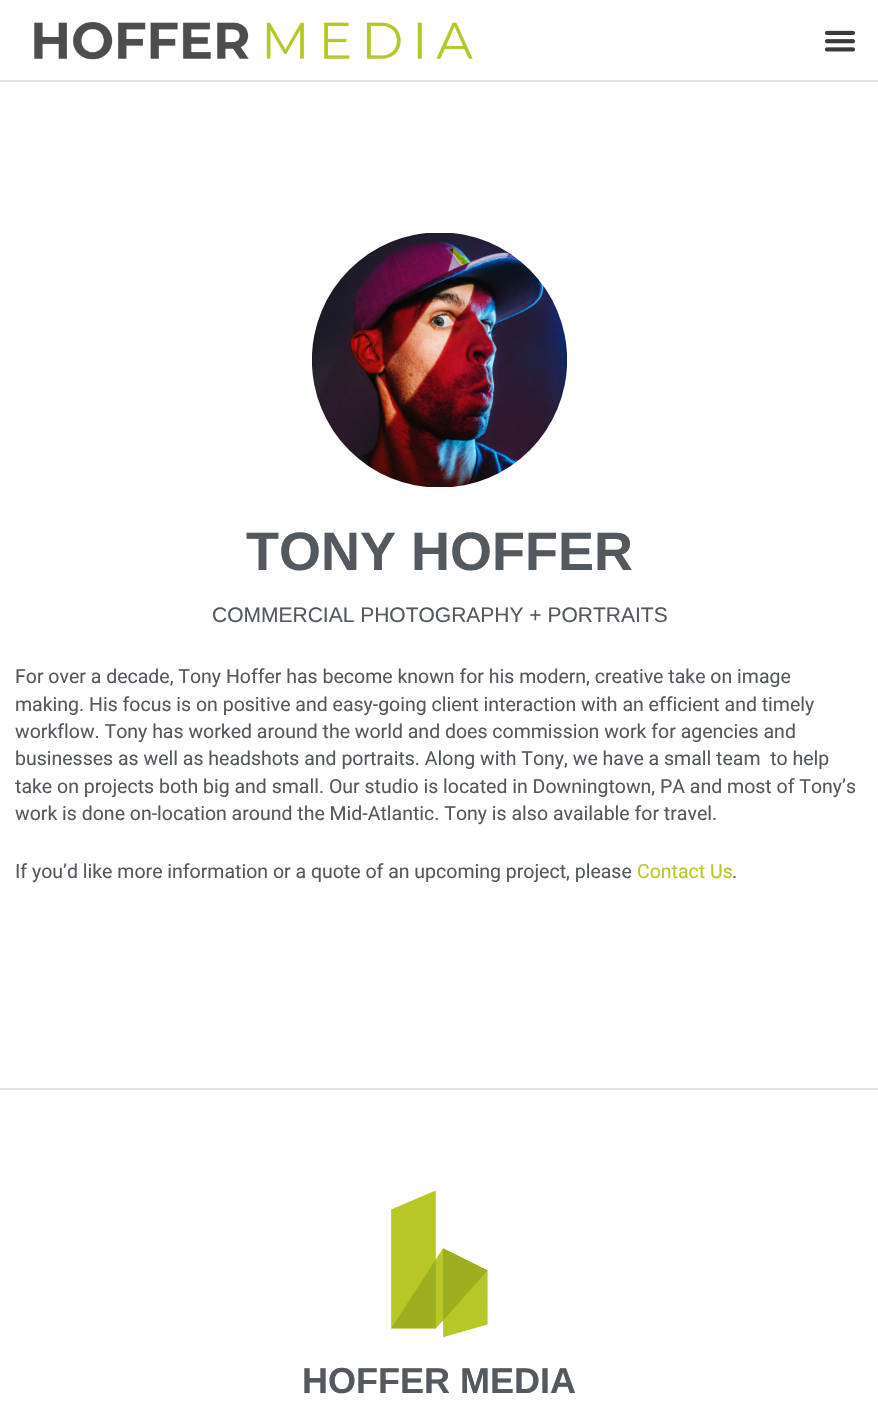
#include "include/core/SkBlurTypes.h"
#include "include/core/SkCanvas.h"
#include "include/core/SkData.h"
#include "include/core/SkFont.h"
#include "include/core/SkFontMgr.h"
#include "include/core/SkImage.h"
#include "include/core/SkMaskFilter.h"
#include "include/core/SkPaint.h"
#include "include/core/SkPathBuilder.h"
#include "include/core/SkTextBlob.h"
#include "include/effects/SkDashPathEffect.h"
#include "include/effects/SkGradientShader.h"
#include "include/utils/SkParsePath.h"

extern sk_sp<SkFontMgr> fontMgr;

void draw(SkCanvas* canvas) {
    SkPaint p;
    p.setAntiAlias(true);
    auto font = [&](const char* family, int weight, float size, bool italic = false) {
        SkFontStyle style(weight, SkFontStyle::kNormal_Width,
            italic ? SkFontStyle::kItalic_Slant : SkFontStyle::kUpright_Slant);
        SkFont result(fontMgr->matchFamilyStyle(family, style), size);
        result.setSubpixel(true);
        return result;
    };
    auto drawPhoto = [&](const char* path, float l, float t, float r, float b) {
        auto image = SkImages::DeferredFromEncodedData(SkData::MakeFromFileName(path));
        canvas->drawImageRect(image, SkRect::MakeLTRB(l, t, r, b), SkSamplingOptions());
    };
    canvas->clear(0xFFFFFFFF);
    p.setColor(0xFFE5E5E5);
    canvas->drawRect(SkRect::MakeLTRB(0, 80, 878, 82), p);
    drawPhoto("media/1.png", 34, 22, 473, 60);
    drawPhoto("media/2.png", 824, 30, 856, 52);
    drawPhoto("media/3.png", 312, 233, 567, 488);
    auto font1 = font("Liberation Sans", 700, 54);
    p.setColor(0xFF54595F);
    canvas->drawString("TONY HOFFER", 246, 570, font1, p);
    auto font2 = font("Liberation Sans", 400, 21);
    canvas->drawString("COMMERCIAL PHOTOGRAPHY + PORTRAITS", 212, 622, font2, p);
    auto font3 = font("Roboto", 400, 19.5f);
    {
        const struct { const char* s; float x, y; } items[] = {
            {"For over a decade, Tony Hoffer has become known for his modern, creative take on image", 15, 683},
            {"making. His focus is on positive and easy-going client interaction with an efficient and timely", 15, 711},
            {"workflow. Tony has worked around the world and does commission work for agencies and", 15, 738},
            {"businesses as well as headshots and portraits. Along with Tony, we have a small team  to help", 15, 765},
            {"take on projects both big and small. Our studio is located in Downingtown, PA and most of Tony’s", 15, 793},
            {"work is done on-location around the Mid-Atlantic. Tony is also available for travel.", 15, 820},
            {"If you’d like more information or a quote of an upcoming project, please", 15, 878},
        };
        for (auto [s, x, y] : items) {
            canvas->drawString(s, x, y, font3, p);
        }
    }
    p.setColor(0xFFB7C726);
    canvas->drawString("Contact Us", 637, 878, font3, p);
    p.setColor(0xFF54595F);
    canvas->drawString(".", 732, 878, font3, p);
    p.setColor(0xFFE5E5E5);
    canvas->drawRect(SkRect::MakeLTRB(0, 1088, 878, 1090), p);
    drawPhoto("media/4.png", 391, 1190, 488, 1338);
    auto font4 = font("Liberation Sans", 700, 36);
    p.setColor(0xFF54595F);
    canvas->drawString("HOFFER MEDIA", 302, 1393, font4, p);
}
